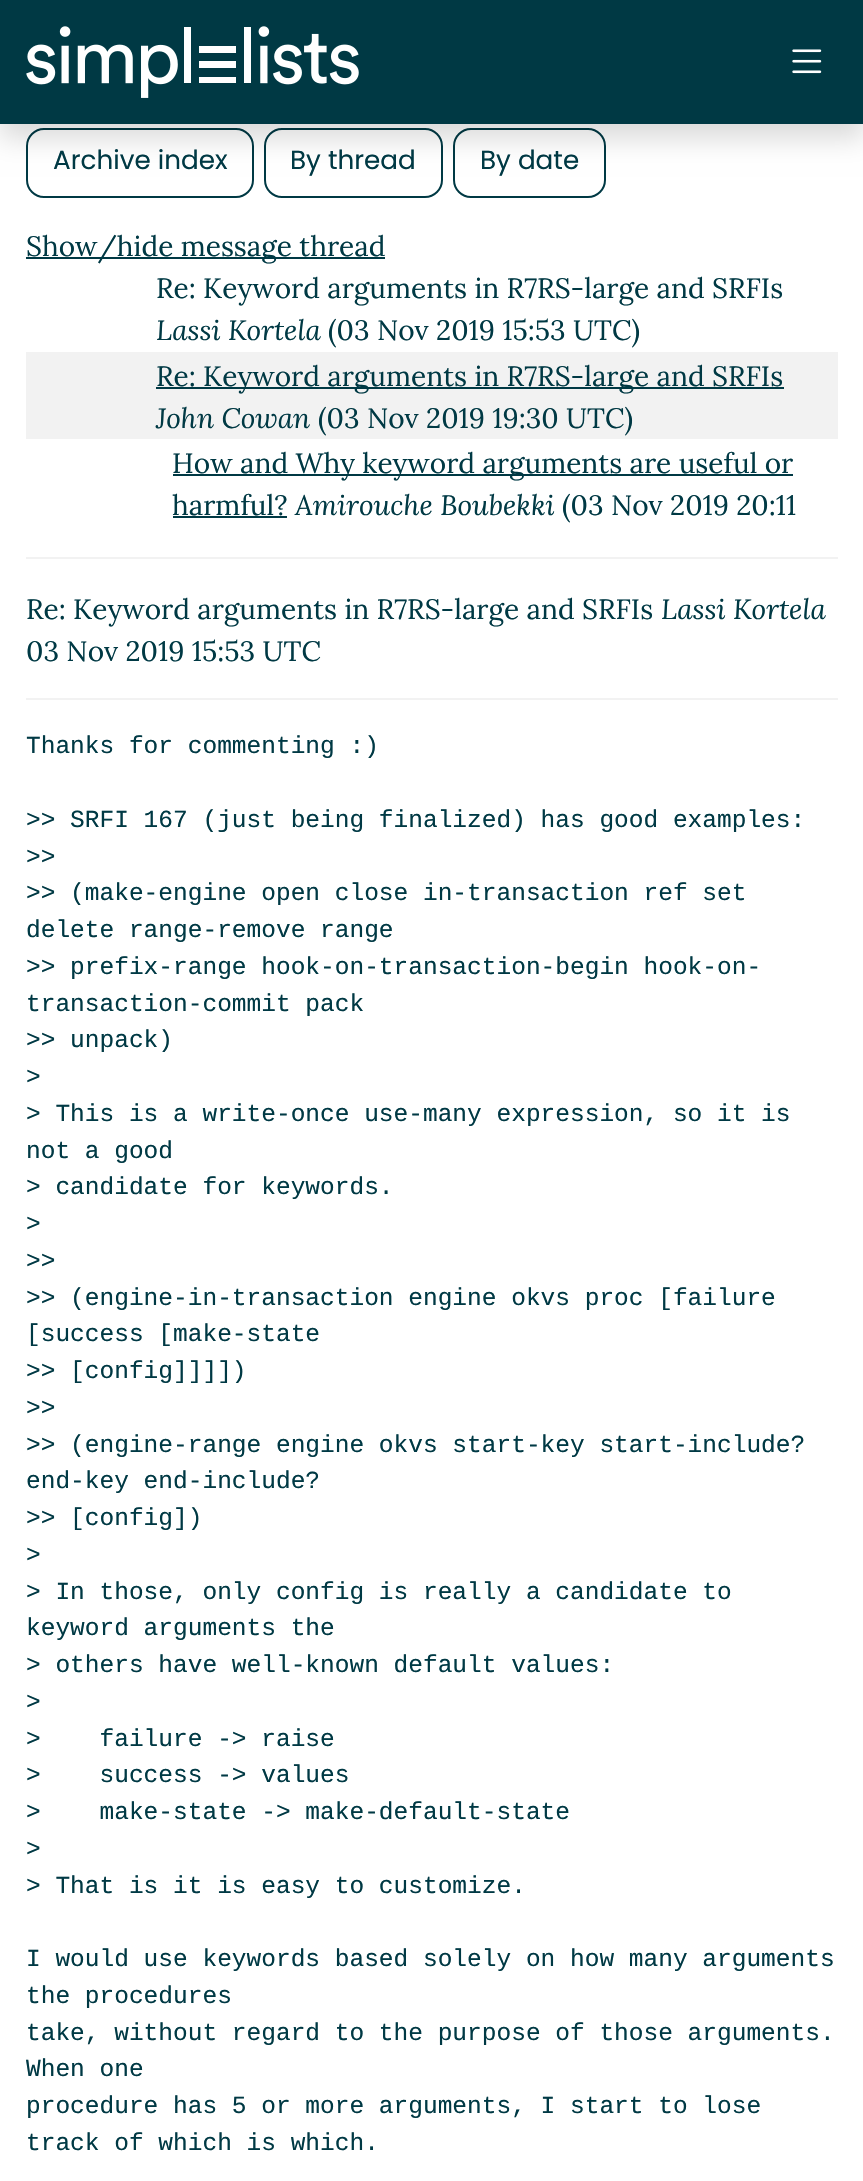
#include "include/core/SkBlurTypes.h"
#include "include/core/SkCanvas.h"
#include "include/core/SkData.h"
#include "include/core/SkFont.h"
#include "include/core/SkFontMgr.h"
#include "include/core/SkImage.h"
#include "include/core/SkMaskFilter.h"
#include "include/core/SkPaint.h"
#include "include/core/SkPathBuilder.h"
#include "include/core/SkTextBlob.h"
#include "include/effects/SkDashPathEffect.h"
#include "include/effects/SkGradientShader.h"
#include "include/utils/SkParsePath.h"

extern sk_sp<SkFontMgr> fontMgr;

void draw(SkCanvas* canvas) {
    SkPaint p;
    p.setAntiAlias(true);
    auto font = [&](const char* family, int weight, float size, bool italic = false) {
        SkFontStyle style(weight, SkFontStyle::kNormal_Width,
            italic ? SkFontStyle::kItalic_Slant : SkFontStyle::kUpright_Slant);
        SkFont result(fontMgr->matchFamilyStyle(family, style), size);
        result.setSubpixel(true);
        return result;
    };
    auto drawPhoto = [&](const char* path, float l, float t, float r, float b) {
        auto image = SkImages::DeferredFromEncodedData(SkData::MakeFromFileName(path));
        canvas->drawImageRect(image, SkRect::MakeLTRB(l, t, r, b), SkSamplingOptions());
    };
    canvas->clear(0xFFFFFFFF);
    p.setStyle(SkPaint::kStroke_Style);
    p.setStrokeWidth(2);
    p.setColor(0xFF003944);
    canvas->drawRoundRect(SkRect::MakeLTRB(27, 129, 253, 197), 17, 17, p);
    canvas->drawRoundRect(SkRect::MakeLTRB(265, 129, 442, 197), 17, 17, p);
    canvas->drawRoundRect(SkRect::MakeLTRB(454, 129, 605, 197), 17, 17, p);
    p.setStyle(SkPaint::kFill_Style);
    p.setColor(0x26000000);
    p.setMaskFilter(SkMaskFilter::MakeBlur(kNormal_SkBlurStyle, 13));
    canvas->drawRect(SkRect::MakeLTRB(0, 14, 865, 138), p);
    p.setMaskFilter(nullptr);
    p.setColor(0xFF003944);
    canvas->drawRect(SkRect::MakeLTRB(0, 0, 863, 124), p);
    drawPhoto("media/1.png", 26, 26, 359, 98);
    drawPhoto("media/2.png", 792, 49, 822, 74);
    auto font1 = font("Poppins", 400, 26.25f);
    {
        const struct { const char* s; float x, y; } items[] = {
            {"Archive index", 53, 169},
            {"By thread", 290, 169},
            {"By date", 480, 169},
        };
        for (auto [s, x, y] : items) {
            canvas->drawString(s, x, y, font1, p);
        }
    }
    canvas->drawRect(SkRect::MakeLTRB(26, 257, 385, 259), p);
    auto font2 = font("Lora", 400, 28);
    canvas->drawString("Show/hide message thread", 26, 256, font2, p);
    canvas->drawString("Re: Keyword arguments in R7RS-large and SRFIs", 156, 298, font2, p);
    auto font3 = font("Lora", 400, 28, true);
    canvas->drawString("Lassi Kortela", 156, 340, font3, p);
    canvas->drawString("(03 Nov 2019 15:53 UTC)", 328, 340, font2, p);
    p.setColor(0xFFF2F2F2);
    canvas->drawRect(SkRect::MakeLTRB(26, 352, 838, 439), p);
    p.setColor(0xFF003944);
    canvas->drawRect(SkRect::MakeLTRB(156, 387, 784, 389), p);
    canvas->drawString("Re: Keyword arguments in R7RS-large and SRFIs", 156, 386, font2, p);
    canvas->drawString("John Cowan", 156, 428, font3, p);
    canvas->drawString("(03 Nov 2019 19:30 UTC)", 318, 428, font2, p);
    canvas->drawRect(SkRect::MakeLTRB(173, 474, 793, 476), p);
    canvas->drawString("How and Why keyword arguments are useful or", 172, 473, font2, p);
    canvas->drawString("harmful?", 172, 515, font2, p);
    canvas->drawRect(SkRect::MakeLTRB(173, 516, 287, 518), p);
    canvas->drawString("Amirouche Boubekki", 295, 515, font3, p);
    canvas->drawString("(03 Nov 2019 20:11", 562, 515, font2, p);
    p.setColor(0xFFF2F2F2);
    canvas->drawRect(SkRect::MakeLTRB(26, 557, 838, 559), p);
    p.setColor(0xFF003944);
    canvas->drawString("Re: Keyword arguments in R7RS-large and SRFIs", 26, 619, font2, p);
    canvas->drawString("Lassi Kortela", 661, 619, font3, p);
    canvas->drawString("03 Nov 2019 15:53 UTC", 26, 661, font2, p);
    p.setColor(0xFFF2F2F2);
    canvas->drawRect(SkRect::MakeLTRB(26, 698, 838, 700), p);
    auto font4 = font("Liberation Mono", 400, 24.5f);
    p.setColor(0xFF003944);
    {
        const struct { const char* s; float x, y; } items[] = {
            {"Thanks for commenting :)", 26, 753},
            {">> SRFI 167 (just being finalized) has good examples:", 26, 827},
            {">>", 26, 864},
            {">> (make-engine open close in-transaction ref set", 26, 900},
            {"delete range-remove range", 26, 937},
            {">> prefix-range hook-on-transaction-begin hook-on-", 26, 974},
            {"transaction-commit pack", 26, 1011},
            {">> unpack)", 26, 1047},
            {">", 26, 1084},
            {"> This is a write-once use-many expression, so it is", 26, 1121},
            {"not a good", 26, 1158},
            {"> candidate for keywords.", 26, 1194},
            {">", 26, 1231},
            {">>", 26, 1268},
            {">> (engine-in-transaction engine okvs proc [failure", 26, 1305},
            {"[success [make-state", 26, 1341},
            {">> [config]]]])", 26, 1378},
            {">>", 26, 1415},
            {">> (engine-range engine okvs start-key start-include?", 26, 1452},
            {"end-key end-include?", 26, 1488},
            {">> [config])", 26, 1525},
            {">", 26, 1562},
            {"> In those, only config is really a candidate to", 26, 1599},
            {"keyword arguments the", 26, 1635},
            {"> others have well-known default values:", 26, 1672},
            {">", 26, 1709},
            {">    failure -> raise", 26, 1746},
            {">    success -> values", 26, 1782},
            {">    make-state -> make-default-state", 26, 1819},
            {">", 26, 1856},
            {"> That is it is easy to customize.", 26, 1893},
            {"I would use keywords based solely on how many arguments", 26, 1966},
            {"the procedures", 26, 2003},
            {"take, without regard to the purpose of those arguments.", 26, 2040},
            {"When one", 26, 2076},
            {"procedure has 5 or more arguments, I start to lose", 26, 2113},
            {"track of which is which.", 26, 2150},
        };
        for (auto [s, x, y] : items) {
            canvas->drawString(s, x, y, font4, p);
        }
    }
}
